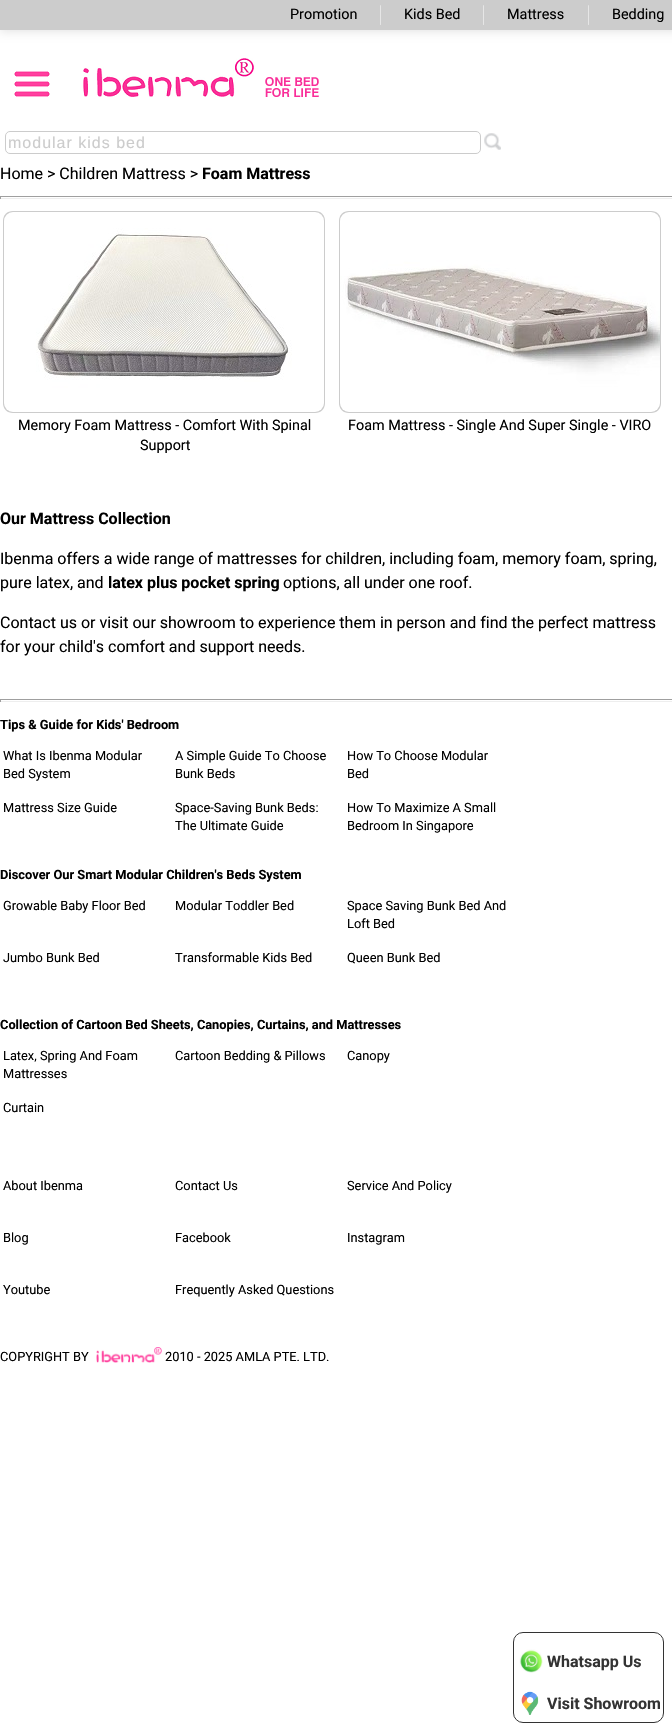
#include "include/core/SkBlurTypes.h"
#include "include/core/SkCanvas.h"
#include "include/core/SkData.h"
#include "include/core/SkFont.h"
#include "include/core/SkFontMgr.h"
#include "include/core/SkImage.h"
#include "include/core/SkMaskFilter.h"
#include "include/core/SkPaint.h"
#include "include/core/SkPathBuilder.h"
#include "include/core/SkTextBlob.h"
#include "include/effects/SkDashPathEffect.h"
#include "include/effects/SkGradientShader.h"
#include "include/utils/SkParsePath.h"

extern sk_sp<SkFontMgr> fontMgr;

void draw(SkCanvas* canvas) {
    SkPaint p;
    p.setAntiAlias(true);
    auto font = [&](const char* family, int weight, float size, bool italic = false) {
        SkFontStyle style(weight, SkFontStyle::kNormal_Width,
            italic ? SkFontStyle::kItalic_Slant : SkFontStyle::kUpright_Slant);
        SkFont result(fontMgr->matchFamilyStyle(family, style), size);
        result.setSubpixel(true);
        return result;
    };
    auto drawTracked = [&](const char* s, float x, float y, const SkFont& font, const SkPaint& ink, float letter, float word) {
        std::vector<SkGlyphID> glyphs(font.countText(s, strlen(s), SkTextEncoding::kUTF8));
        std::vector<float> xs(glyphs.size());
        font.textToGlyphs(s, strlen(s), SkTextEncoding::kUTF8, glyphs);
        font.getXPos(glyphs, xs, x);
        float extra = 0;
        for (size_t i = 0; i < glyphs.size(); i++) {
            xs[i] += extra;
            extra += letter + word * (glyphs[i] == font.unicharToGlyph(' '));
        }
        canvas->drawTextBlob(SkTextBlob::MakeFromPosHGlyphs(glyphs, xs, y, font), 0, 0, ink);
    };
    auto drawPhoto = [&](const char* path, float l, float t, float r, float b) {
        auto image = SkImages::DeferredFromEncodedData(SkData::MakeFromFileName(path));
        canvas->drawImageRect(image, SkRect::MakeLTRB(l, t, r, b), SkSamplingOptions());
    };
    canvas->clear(0xFFFFFFFF);
    p.setColor(0x1A000000);
    p.setMaskFilter(SkMaskFilter::MakeBlur(kNormal_SkBlurStyle, 5));
    canvas->drawRect(SkRect::MakeLTRB(0, 2, 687, 32), p);
    p.setMaskFilter(nullptr);
    p.setColor(0xFFCCCCCC);
    canvas->drawRect(SkRect::MakeLTRB(0, 0, 672, 30), p);
    auto font1 = font("Roboto", 400, 14.4f);
    p.setColor(0xFF000000);
    canvas->drawString("Promotion", 290, 19, font1, p);
    p.setColor(0xFFE6E6E6);
    canvas->drawRoundRect(SkRect::MakeLTRB(380, 5, 381, 25), 0.5f, 0.5f, p);
    p.setColor(0xFF000000);
    canvas->drawString("Kids Bed", 404, 19, font1, p);
    p.setColor(0xFFE6E6E6);
    canvas->drawRoundRect(SkRect::MakeLTRB(483, 5, 484, 25), 0.5f, 0.5f, p);
    p.setColor(0xFF000000);
    canvas->drawString("Mattress", 507, 19, font1, p);
    p.setColor(0xFFE6E6E6);
    canvas->drawRoundRect(SkRect::MakeLTRB(588, 5, 589, 25), 0.5f, 0.5f, p);
    p.setColor(0xFF000000);
    canvas->drawString("Bedding", 612, 19, font1, p);
    drawPhoto("media/1.png", 14, 71, 50, 97);
    drawPhoto("media/2.png", 83, 58, 319, 97);
    p.setStyle(SkPaint::kStroke_Style);
    p.setStrokeWidth(1);
    p.setColor(0xFFCCCCCC);
    canvas->drawRoundRect(SkRect::MakeLTRB(5.5f, 131.5f, 480.5f, 153.5f), 4.5f, 4.5f, p);
    auto font2 = font("Liberation Sans", 400, 16);
    p.setStyle(SkPaint::kFill_Style);
    drawTracked("modular kids bed", 8, 148, font2, p, 1, 0);
    drawPhoto("media/3.png", 484, 133, 501, 150);
    auto font3 = font("Roboto", 400, 16);
    p.setColor(0xFF000000);
    canvas->drawString("Home > Children Mattress >", 0, 179, font3, p);
    auto font4 = font("Roboto", 700, 16);
    canvas->drawString("Foam Mattress", 202, 179, font4, p);
    {
        const struct { float l, t, r, b; SkColor color; } items[] = {
            {0, 196, 672, 197, 0xFF9F9F9F},
            {0, 198, 672, 199, 0xFFEEEEEE},
            {0, 196, 1, 199, 0xFF9F9F9F},
        };
        for (auto [l, t, r, b, color] : items) {
            p.setColor(color);
            canvas->drawRect(SkRect::MakeLTRB(l, t, r, b), p);
        }
    }
    p.setColor(0xFFCCCCCC);
    canvas->drawPath(SkPathBuilder().moveTo(13, 211).lineTo(315, 211).cubicTo(321, 211, 325, 215, 325, 221).lineTo(325, 403).cubicTo(325, 409, 321, 413, 315, 413).lineTo(13, 413).cubicTo(7, 413, 3, 409, 3, 403).lineTo(3, 221).cubicTo(3, 215, 7, 211, 13, 211).close().detach(), p);
    drawPhoto("media/4.png", 4, 212, 324, 412);
    p.setColor(0xFF000000);
    canvas->drawString("Memory Foam Mattress - Comfort With Spinal", 18, 430, font1, p);
    canvas->drawString("Support", 140, 450, font1, p);
    p.setColor(0xFFCCCCCC);
    canvas->drawPath(SkPathBuilder().moveTo(349, 211).lineTo(651, 211).cubicTo(657, 211, 661, 215, 661, 221).lineTo(661, 403).cubicTo(661, 409, 657, 413, 651, 413).lineTo(349, 413).cubicTo(343, 413, 339, 409, 339, 403).lineTo(339, 221).cubicTo(339, 215, 343, 211, 349, 211).close().detach(), p);
    drawPhoto("media/5.png", 340, 212, 660, 412);
    p.setColor(0xFF000000);
    canvas->drawString("Foam Mattress - Single And Super Single - VIRO", 348, 430, font1, p);
    canvas->drawString("Our Mattress Collection", 0, 524, font4, p);
    canvas->drawString("Ibenma offers a wide range of mattresses for children, including foam, memory foam, spring,", 0, 564, font3, p);
    canvas->drawString("pure latex, and", 0, 588, font3, p);
    canvas->drawString("latex plus pocket spring", 108, 588, font4, p);
    {
        const struct { const char* s; float x, y; } items[] = {
            {"options, all under one roof.", 283, 588},
            {"Contact us or visit our showroom to experience them in person and find the perfect mattress", 0, 628},
            {"for your child's comfort and support needs.", 0, 652},
        };
        for (auto [s, x, y] : items) {
            canvas->drawString(s, x, y, font3, p);
        }
    }
    {
        const struct { float l, t, r, b; SkColor color; } items[] = {
            {0, 699, 672, 700, 0xFF9F9F9F},
            {0, 701, 672, 702, 0xFFEEEEEE},
            {0, 699, 1, 702, 0xFF9F9F9F},
        };
        for (auto [l, t, r, b, color] : items) {
            p.setColor(color);
            canvas->drawRect(SkRect::MakeLTRB(l, t, r, b), p);
        }
    }
    auto font5 = font("Roboto", 700, 12.8f);
    p.setColor(0xFF000000);
    canvas->drawString("Tips & Guide for Kids' Bedroom", 0, 729, font5, p);
    auto font6 = font("Roboto", 400, 12.8f);
    {
        const struct { const char* s; float x, y; } items[] = {
            {"What Is Ibenma Modular", 3, 760},
            {"Bed System", 3, 778},
            {"A Simple Guide To Choose", 175, 760},
            {"Bunk Beds", 175, 778},
            {"How To Choose Modular", 347, 760},
            {"Bed", 347, 778},
            {"Mattress Size Guide", 3, 812},
            {"Space-Saving Bunk Beds:", 175, 812},
            {"The Ultimate Guide", 175, 830},
            {"How To Maximize A Small", 347, 812},
            {"Bedroom In Singapore", 347, 830},
        };
        for (auto [s, x, y] : items) {
            canvas->drawString(s, x, y, font6, p);
        }
    }
    canvas->drawString("Discover Our Smart Modular Children's Beds System", 0, 879, font5, p);
    {
        const struct { const char* s; float x, y; } items[] = {
            {"Growable Baby Floor Bed", 3, 910},
            {"Modular Toddler Bed", 175, 910},
            {"Space Saving Bunk Bed And", 347, 910},
            {"Loft Bed", 347, 928},
            {"Jumbo Bunk Bed", 3, 962},
            {"Transformable Kids Bed", 175, 962},
            {"Queen Bunk Bed", 347, 962},
        };
        for (auto [s, x, y] : items) {
            canvas->drawString(s, x, y, font6, p);
        }
    }
    canvas->drawString("Collection of Cartoon Bed Sheets, Canopies, Curtains, and Mattresses", 0, 1029, font5, p);
    {
        const struct { const char* s; float x, y; } items[] = {
            {"Latex, Spring And Foam", 3, 1060},
            {"Mattresses", 3, 1078},
            {"Cartoon Bedding & Pillows", 175, 1060},
            {"Canopy", 347, 1060},
            {"Curtain", 3, 1112},
            {"About Ibenma", 3, 1190},
            {"Contact Us", 175, 1190},
            {"Service And Policy", 347, 1190},
            {"Blog", 3, 1242},
            {"Facebook", 175, 1242},
            {"Instagram", 347, 1242},
            {"Youtube", 3, 1294},
            {"Frequently Asked Questions", 175, 1294},
            {"COPYRIGHT BY", 0, 1361},
        };
        for (auto [s, x, y] : items) {
            canvas->drawString(s, x, y, font6, p);
        }
    }
    drawPhoto("media/6.png", 96, 1347, 162, 1363);
    canvas->drawString("2010 - 2025 AMLA PTE. LTD.", 165, 1361, font6, p);
    p.setStyle(SkPaint::kStroke_Style);
    p.setColor(0xFF333333);
    canvas->drawRoundRect(SkRect::MakeLTRB(513.5f, 1632.5f, 663.5f, 1722.5f), 9.5f, 9.5f, p);
    drawPhoto("media/7.png", 519, 1649, 543, 1673);
    p.setStyle(SkPaint::kFill_Style);
    canvas->drawString("Whatsapp Us", 547, 1667, font4, p);
    drawPhoto("media/8.png", 521, 1691, 539, 1715);
    canvas->drawString("Visit Showroom", 547, 1709, font4, p);
}
